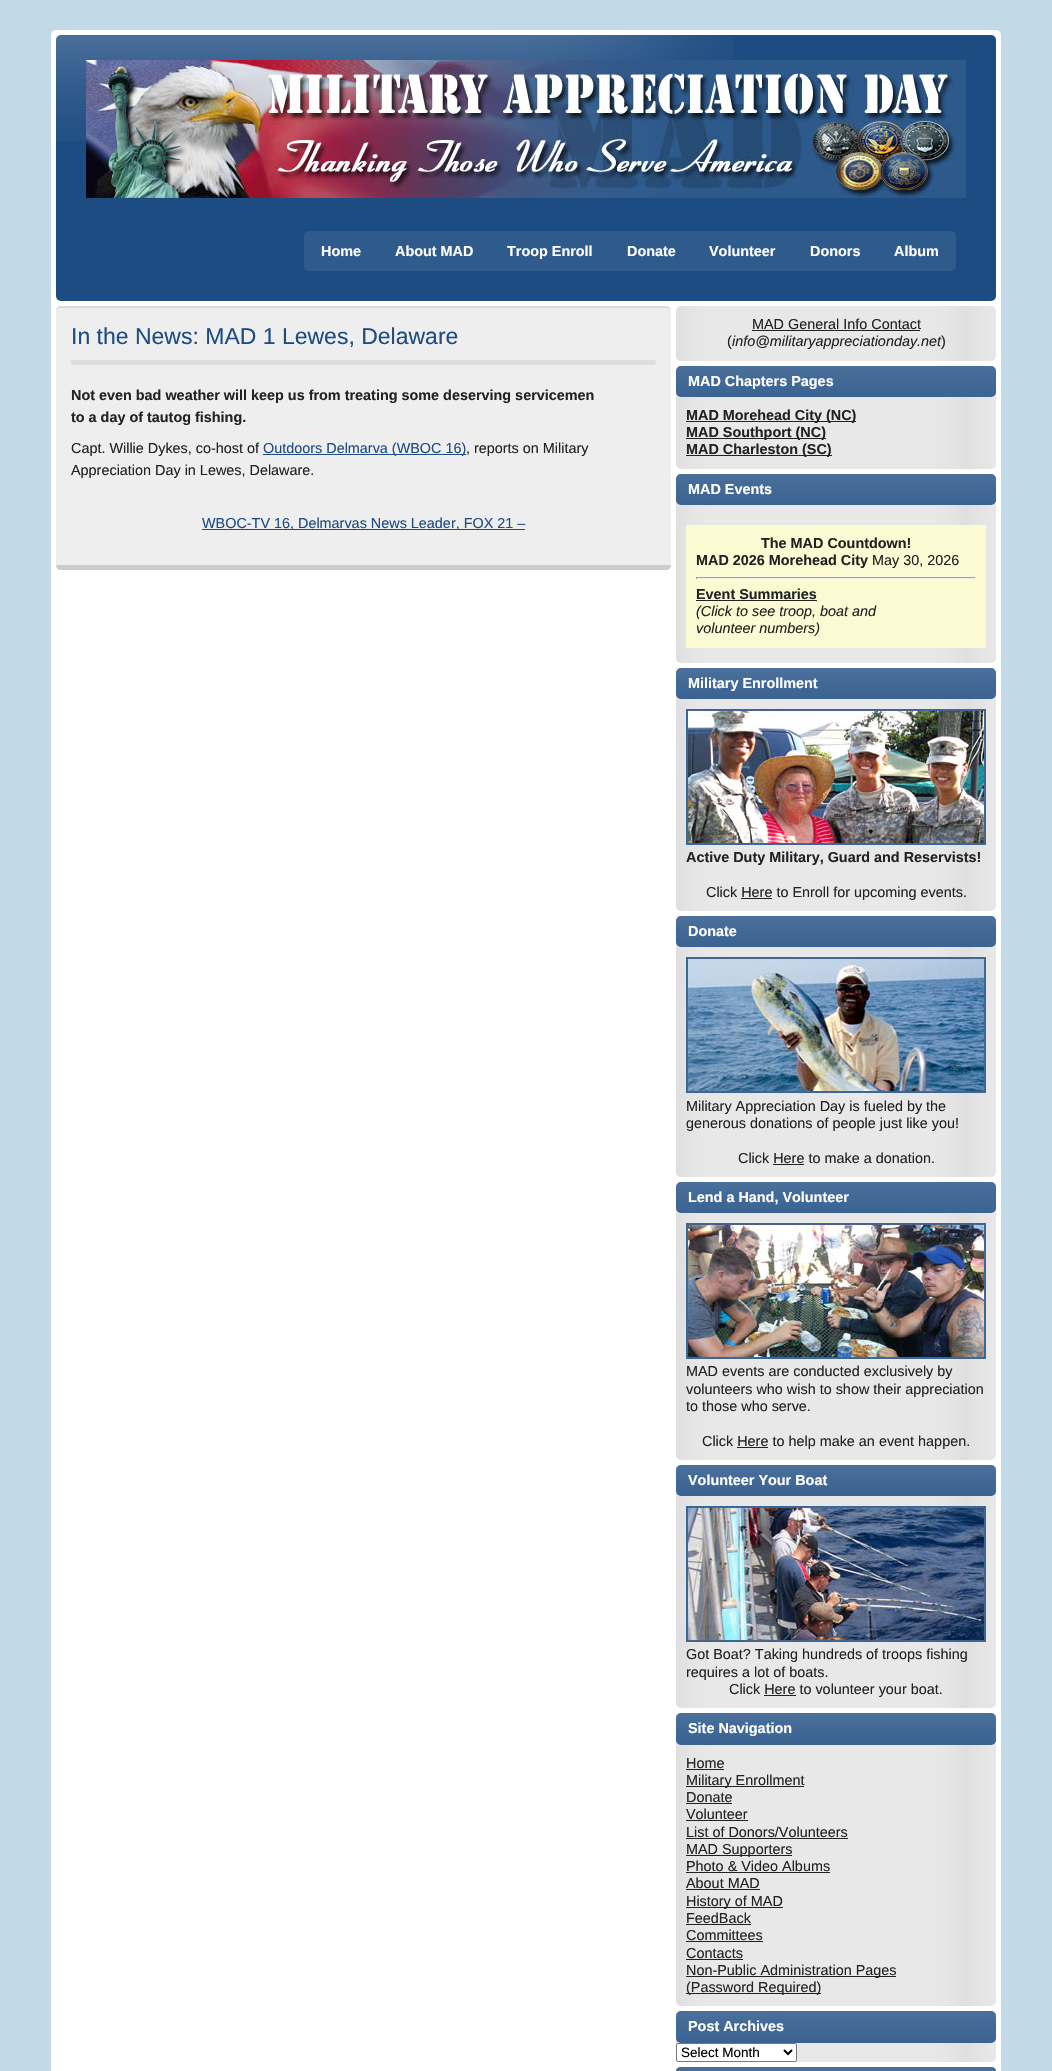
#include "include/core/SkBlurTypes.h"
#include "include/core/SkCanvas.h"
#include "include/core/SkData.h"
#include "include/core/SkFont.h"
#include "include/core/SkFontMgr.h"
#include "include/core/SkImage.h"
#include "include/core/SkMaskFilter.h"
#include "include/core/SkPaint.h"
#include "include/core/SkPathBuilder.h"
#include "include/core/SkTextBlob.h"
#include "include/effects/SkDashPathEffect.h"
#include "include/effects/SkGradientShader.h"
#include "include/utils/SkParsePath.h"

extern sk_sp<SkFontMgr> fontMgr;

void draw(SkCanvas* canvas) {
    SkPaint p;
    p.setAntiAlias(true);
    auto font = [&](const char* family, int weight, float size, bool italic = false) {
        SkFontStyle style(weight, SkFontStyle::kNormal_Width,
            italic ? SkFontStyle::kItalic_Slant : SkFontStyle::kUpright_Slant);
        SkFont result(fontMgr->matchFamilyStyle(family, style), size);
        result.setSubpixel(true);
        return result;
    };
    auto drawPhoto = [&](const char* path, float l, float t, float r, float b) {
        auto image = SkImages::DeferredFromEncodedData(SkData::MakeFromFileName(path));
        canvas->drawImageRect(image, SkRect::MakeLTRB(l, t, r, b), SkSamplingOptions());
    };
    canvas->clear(0xFFC2D9E8);
    p.setColor(0xFFFFFFFF);
    canvas->drawRoundRect(SkRect::MakeLTRB(51, 30, 1001, 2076), 5, 5, p);
    p.setColor(0xFF1D4C82);
    canvas->drawRoundRect(SkRect::MakeLTRB(56, 35, 996, 301), 5, 5, p);
    drawPhoto("media/1.png", 56, 35, 733, 141);
    drawPhoto("media/2.png", 86, 60, 966, 198);
    drawPhoto("media/3.png", 304, 231, 956, 271);
    auto font1 = font("Liberation Sans", 700, 14.4f);
    p.setColor(0xFFFFFFFF);
    {
        const struct { const char* s; float x, y; } items[] = {
            {"Home", 321, 256},
            {"About MAD", 395, 256},
            {"Troop Enroll", 507, 256},
            {"Donate", 627, 256},
            {"Volunteer", 709, 256},
            {"Donors", 810, 256},
            {"Album", 894, 256},
        };
        for (auto [s, x, y] : items) {
            canvas->drawString(s, x, y, font1, p);
        }
    }
    p.setColor(0xFFEEEEEE);
    canvas->drawRoundRect(SkRect::MakeLTRB(56, 306, 671, 570), 5, 5, p);
    p.setColor(0xFFDDDDDD);
    canvas->drawPath(SkPathBuilder().moveTo(61, 306).cubicTo(58, 306, 56, 308, 56, 311).cubicTo(56, 309, 58, 308, 61, 308).lineTo(666, 308).cubicTo(669, 308, 671, 309, 671, 311).cubicTo(671, 308, 669, 306, 666, 306).close().detach(), p);
    p.setColor(0xFFCCCCCC);
    canvas->drawPath(SkPathBuilder().moveTo(666, 570).cubicTo(669, 570, 671, 568, 671, 565).lineTo(56, 565).cubicTo(56, 568, 58, 570, 61, 570).close().detach(), p);
    auto font2 = font("Liberation Sans", 400, 23);
    p.setColor(0xFF1D4C82);
    canvas->drawString("In the News: MAD 1 Lewes, Delaware", 71, 344, font2, p);
    p.setColor(0xFFDDDDDD);
    canvas->drawRoundRect(SkRect::MakeLTRB(71, 360, 656, 365), 2.5f, 2.5f, p);
    p.setColor(0xFF222222);
    canvas->drawString("Not even bad weather will keep us from treating some deserving servicemen", 71, 400, font1, p);
    canvas->drawString("to a day of tautog fishing.", 71, 422, font1, p);
    auto font3 = font("Liberation Sans", 400, 14.4f);
    canvas->drawString("Capt. Willie Dykes, co-host of", 71, 453, font3, p);
    p.setColor(0xFF1D4C82);
    canvas->drawRect(SkRect::MakeLTRB(263, 454, 466, 455), p);
    canvas->drawString("Outdoors Delmarva (WBOC 16)", 263, 453, font3, p);
    p.setColor(0xFF222222);
    canvas->drawString(", reports on Military", 466, 453, font3, p);
    canvas->drawString("Appreciation Day in Lewes, Delaware.", 71, 475, font3, p);
    p.setColor(0xFF1D4C82);
    canvas->drawRect(SkRect::MakeLTRB(202, 529, 525, 530), p);
    canvas->drawString("WBOC-TV 16, Delmarvas News Leader, FOX 21 –", 202, 528, font3, p);
    drawPhoto("media/4.png", 676, 306, 996, 361);
    p.setColor(0xFF222222);
    canvas->drawString("MAD General Info Contact", 752, 329, font3, p);
    canvas->drawRect(SkRect::MakeLTRB(752, 330, 920, 331), p);
    canvas->drawString("(", 727, 346, font3, p);
    auto font4 = font("Liberation Sans", 400, 14.4f, true);
    canvas->drawString("info@militaryappreciationday.net", 732, 346, font4, p);
    canvas->drawString(")", 941, 346, font3, p);
    drawPhoto("media/5.png", 676, 366, 996, 469);
    p.setColor(0xFF1D4C82);
    canvas->drawRoundRect(SkRect::MakeLTRB(676, 366, 996, 397), 5, 5, p);
    drawPhoto("media/6.png", 676, 366, 996, 397);
    p.setColor(0xFFFFFFFF);
    canvas->drawString("MAD Chapters Pages", 688, 386, font1, p);
    p.setColor(0xFF222222);
    canvas->drawRect(SkRect::MakeLTRB(686, 421, 856, 422), p);
    canvas->drawString("MAD Morehead City (NC)", 686, 420, font1, p);
    canvas->drawRect(SkRect::MakeLTRB(686, 438, 826, 439), p);
    canvas->drawString("MAD Southport (NC)", 686, 437, font1, p);
    canvas->drawRect(SkRect::MakeLTRB(686, 455, 832, 456), p);
    canvas->drawString("MAD Charleston (SC)", 686, 454, font1, p);
    drawPhoto("media/7.png", 676, 474, 996, 663);
    p.setColor(0xFF1D4C82);
    canvas->drawRoundRect(SkRect::MakeLTRB(676, 474, 996, 505), 5, 5, p);
    drawPhoto("media/6.png", 676, 474, 996, 505);
    p.setColor(0xFFFFFFFF);
    canvas->drawString("MAD Events", 688, 494, font1, p);
    p.setColor(0xFFFCFAD3);
    canvas->drawRect(SkRect::MakeLTRB(686, 525, 986, 648), p);
    p.setColor(0xFF222222);
    canvas->drawString("The MAD Countdown!", 761, 548, font1, p);
    canvas->drawString("MAD 2026 Morehead City", 696, 565, font1, p);
    canvas->drawString("May 30, 2026", 872, 565, font3, p);
    {
        const struct { float l, t, r, b; SkColor color; } items[] = {
            {696, 577, 976, 578, 0xFF9F9F9F},
            {975, 577, 976, 579, 0xFFEEEEEE},
            {696, 578, 976, 579, 0xFFEEEEEE},
            {696, 577, 697, 579, 0xFF9F9F9F},
        };
        for (auto [l, t, r, b, color] : items) {
            p.setColor(color);
            canvas->drawRect(SkRect::MakeLTRB(l, t, r, b), p);
        }
    }
    p.setColor(0xFF222222);
    canvas->drawString("Event Summaries", 696, 599, font1, p);
    canvas->drawRect(SkRect::MakeLTRB(696, 600, 817, 601), p);
    canvas->drawString("(Click to see troop, boat and", 696, 616, font4, p);
    canvas->drawString("volunteer numbers)", 696, 633, font4, p);
    drawPhoto("media/8.png", 676, 668, 996, 911);
    p.setColor(0xFF1D4C82);
    canvas->drawRoundRect(SkRect::MakeLTRB(676, 668, 996, 699), 5, 5, p);
    drawPhoto("media/6.png", 676, 668, 996, 699);
    p.setColor(0xFFFFFFFF);
    canvas->drawString("Military Enrollment", 688, 688, font1, p);
    drawPhoto("media/9.png", 686, 709, 986, 845);
    p.setColor(0xFF222222);
    canvas->drawString("Active Duty Military, Guard and Reservists!", 686, 862, font1, p);
    canvas->drawString("Click Here to Enroll for upcoming events.", 706, 897, font3, p);
    canvas->drawRect(SkRect::MakeLTRB(741, 898, 772, 899), p);
    drawPhoto("media/10.png", 676, 916, 996, 1177);
    p.setColor(0xFF1D4C82);
    canvas->drawRoundRect(SkRect::MakeLTRB(676, 916, 996, 947), 5, 5, p);
    drawPhoto("media/6.png", 676, 916, 996, 947);
    p.setColor(0xFFFFFFFF);
    canvas->drawString("Donate", 688, 936, font1, p);
    drawPhoto("media/11.png", 686, 957, 986, 1093);
    p.setColor(0xFF222222);
    {
        const struct { const char* s; float x, y; } items[] = {
            {"Military Appreciation Day is fueled by the", 686, 1111},
            {"generous donations of people just like you!", 686, 1128},
            {"Click Here to make a donation.", 738, 1163},
        };
        for (auto [s, x, y] : items) {
            canvas->drawString(s, x, y, font3, p);
        }
    }
    canvas->drawRect(SkRect::MakeLTRB(773, 1164, 804, 1165), p);
    drawPhoto("media/12.png", 676, 1182, 996, 1460);
    p.setColor(0xFF1D4C82);
    canvas->drawRoundRect(SkRect::MakeLTRB(676, 1182, 996, 1213), 5, 5, p);
    drawPhoto("media/6.png", 676, 1182, 996, 1213);
    p.setColor(0xFFFFFFFF);
    canvas->drawString("Lend a Hand, Volunteer", 688, 1202, font1, p);
    drawPhoto("media/13.png", 686, 1223, 986, 1359);
    p.setColor(0xFF222222);
    {
        const struct { const char* s; float x, y; } items[] = {
            {"MAD events are conducted exclusively by", 686, 1376},
            {"volunteers who wish to show their appreciation", 686, 1394},
            {"to those who serve.", 686, 1411},
            {"Click Here to help make an event happen.", 702, 1446},
        };
        for (auto [s, x, y] : items) {
            canvas->drawString(s, x, y, font3, p);
        }
    }
    canvas->drawRect(SkRect::MakeLTRB(737, 1447, 768, 1448), p);
    drawPhoto("media/8.png", 676, 1465, 996, 1708);
    p.setColor(0xFF1D4C82);
    canvas->drawRoundRect(SkRect::MakeLTRB(676, 1465, 996, 1496), 5, 5, p);
    drawPhoto("media/6.png", 676, 1465, 996, 1496);
    p.setColor(0xFFFFFFFF);
    canvas->drawString("Volunteer Your Boat", 688, 1485, font1, p);
    drawPhoto("media/14.png", 686, 1506, 986, 1642);
    p.setColor(0xFF222222);
    {
        const struct { const char* s; float x, y; } items[] = {
            {"Got Boat? Taking hundreds of troops fishing", 686, 1659},
            {"requires a lot of boats.", 686, 1677},
            {"Click Here to volunteer your boat.", 729, 1694},
        };
        for (auto [s, x, y] : items) {
            canvas->drawString(s, x, y, font3, p);
        }
    }
    canvas->drawRect(SkRect::MakeLTRB(764, 1695, 796, 1696), p);
    drawPhoto("media/15.png", 676, 1713, 996, 2006);
    p.setColor(0xFF1D4C82);
    canvas->drawRoundRect(SkRect::MakeLTRB(676, 1713, 996, 1745), 5, 5, p);
    drawPhoto("media/16.png", 676, 1713, 996, 1745);
    p.setColor(0xFFFFFFFF);
    canvas->drawString("Site Navigation", 688, 1733, font1, p);
    p.setColor(0xFF222222);
    canvas->drawString("Home", 686, 1768, font3, p);
    canvas->drawRect(SkRect::MakeLTRB(686, 1769, 724, 1770), p);
    canvas->drawRect(SkRect::MakeLTRB(686, 1786, 804, 1787), p);
    canvas->drawString("Military Enrollment", 686, 1785, font3, p);
    canvas->drawString("Donate", 686, 1802, font3, p);
    canvas->drawRect(SkRect::MakeLTRB(686, 1803, 732, 1804), p);
    canvas->drawString("Volunteer", 686, 1819, font3, p);
    canvas->drawRect(SkRect::MakeLTRB(686, 1820, 748, 1821), p);
    canvas->drawString("List of Donors/Volunteers", 686, 1837, font3, p);
    canvas->drawRect(SkRect::MakeLTRB(686, 1838, 848, 1839), p);
    canvas->drawRect(SkRect::MakeLTRB(686, 1855, 792, 1856), p);
    canvas->drawString("MAD Supporters", 686, 1854, font3, p);
    canvas->drawString("Photo & Video Albums", 686, 1871, font3, p);
    canvas->drawRect(SkRect::MakeLTRB(686, 1872, 830, 1873), p);
    canvas->drawString("About MAD", 686, 1888, font3, p);
    canvas->drawRect(SkRect::MakeLTRB(686, 1889, 760, 1890), p);
    canvas->drawRect(SkRect::MakeLTRB(686, 1907, 783, 1908), p);
    canvas->drawString("History of MAD", 686, 1906, font3, p);
    canvas->drawString("FeedBack", 686, 1923, font3, p);
    canvas->drawRect(SkRect::MakeLTRB(686, 1924, 751, 1925), p);
    canvas->drawString("Committees", 686, 1940, font3, p);
    canvas->drawRect(SkRect::MakeLTRB(686, 1941, 763, 1942), p);
    canvas->drawString("Contacts", 686, 1958, font3, p);
    canvas->drawRect(SkRect::MakeLTRB(686, 1959, 743, 1960), p);
    canvas->drawRect(SkRect::MakeLTRB(686, 1976, 896, 1977), p);
    canvas->drawString("Non-Public Administration Pages", 686, 1975, font3, p);
    canvas->drawRect(SkRect::MakeLTRB(686, 1993, 821, 1994), p);
    canvas->drawString("(Password Required)", 686, 1992, font3, p);
    drawPhoto("media/17.png", 676, 2011, 996, 2062);
    p.setColor(0xFF1D4C82);
    canvas->drawRoundRect(SkRect::MakeLTRB(676, 2011, 996, 2043), 5, 5, p);
    drawPhoto("media/16.png", 676, 2011, 996, 2043);
    p.setColor(0xFFFFFFFF);
    canvas->drawString("Post Archives", 688, 2031, font1, p);
    canvas->drawRoundRect(SkRect::MakeLTRB(676.5f, 2043.5f, 796.5f, 2061.5f), 1.5f, 1.5f, p);
    p.setStyle(SkPaint::kStroke_Style);
    p.setStrokeWidth(1);
    p.setColor(0xFF767676);
    canvas->drawRoundRect(SkRect::MakeLTRB(676.5f, 2043.5f, 796.5f, 2061.5f), 1.5f, 1.5f, p);
    p.setStrokeWidth(2);
    p.setColor(0xFF000000);
    canvas->drawPath(SkPathBuilder().moveTo(784, 2050).lineTo(788, 2054).lineTo(792, 2050).detach(), p);
    auto font5 = font("Liberation Sans", 400, 13.5f);
    p.setStyle(SkPaint::kFill_Style);
    canvas->drawString("Select Month", 681, 2057, font5, p);
    drawPhoto("media/18.png", 676, 2067, 996, 2071);
    p.setColor(0xFF1D4C82);
    canvas->drawRoundRect(SkRect::MakeLTRB(676, 2067, 996, 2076), 5, 5, p);
    drawPhoto("media/19.png", 676, 2067, 996, 2071);
}
